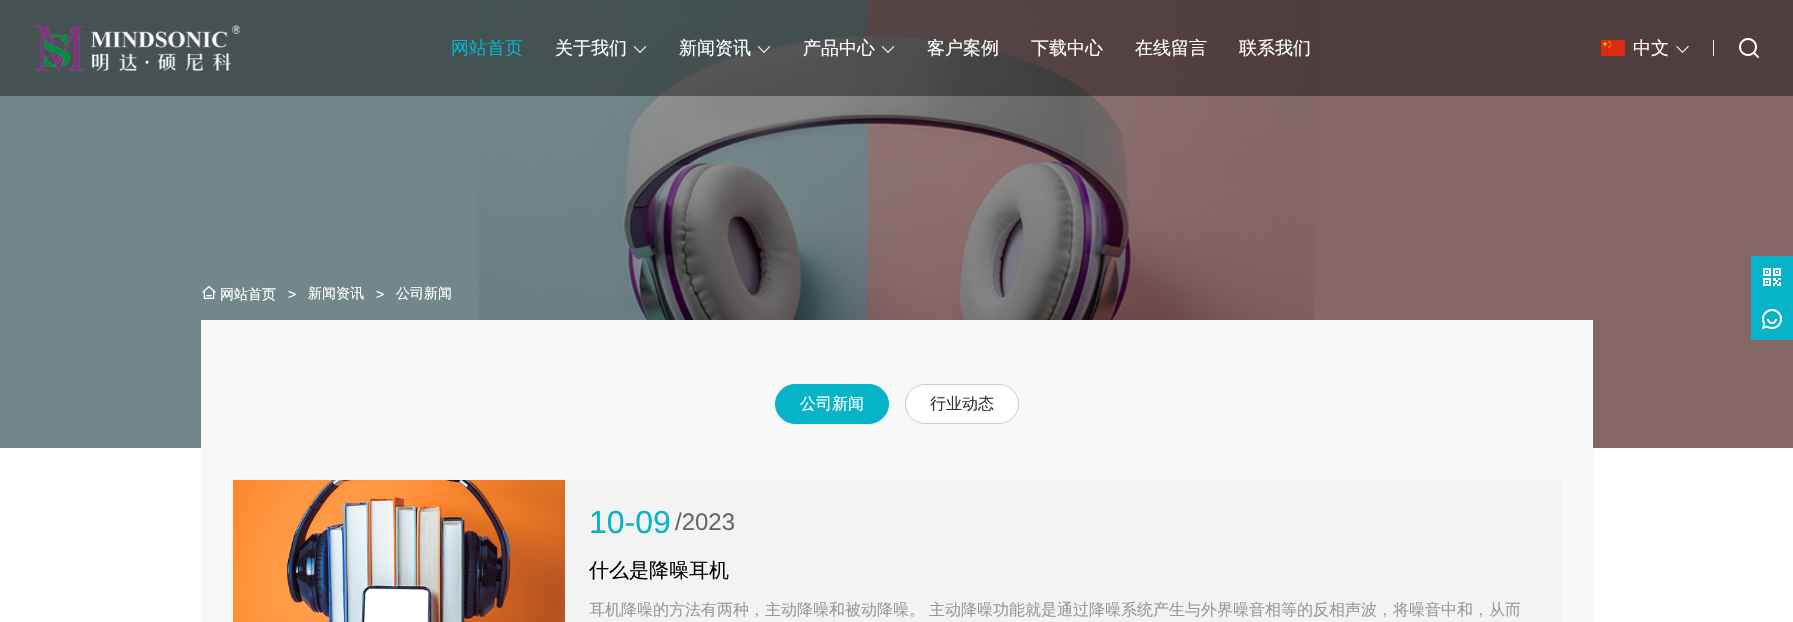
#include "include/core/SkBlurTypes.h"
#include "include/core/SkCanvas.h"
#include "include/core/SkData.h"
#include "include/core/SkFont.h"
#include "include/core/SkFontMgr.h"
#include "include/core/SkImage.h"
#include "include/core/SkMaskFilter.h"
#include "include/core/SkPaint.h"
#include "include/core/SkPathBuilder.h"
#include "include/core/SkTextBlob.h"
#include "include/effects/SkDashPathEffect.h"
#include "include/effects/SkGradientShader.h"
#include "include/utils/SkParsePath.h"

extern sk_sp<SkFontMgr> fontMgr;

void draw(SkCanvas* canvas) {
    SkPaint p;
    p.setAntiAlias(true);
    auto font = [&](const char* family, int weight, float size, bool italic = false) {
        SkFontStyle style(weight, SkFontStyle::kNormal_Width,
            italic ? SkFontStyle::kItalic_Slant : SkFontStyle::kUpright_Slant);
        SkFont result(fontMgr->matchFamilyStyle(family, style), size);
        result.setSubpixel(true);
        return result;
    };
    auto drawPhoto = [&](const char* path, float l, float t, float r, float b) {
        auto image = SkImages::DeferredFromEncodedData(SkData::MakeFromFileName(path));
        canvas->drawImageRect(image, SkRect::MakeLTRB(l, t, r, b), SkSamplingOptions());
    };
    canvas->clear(0xFFFFFFFF);
    drawPhoto("media/4.png", 0, 0, 1793, 448);
    p.setColor(0x66000000);
    canvas->drawRect(SkRect::MakeLTRB(0, 0, 1793, 96), p);
    drawPhoto("media/1.png", 35, 25, 241, 71);
    auto font1 = font("WenQuanYi Zen Hei", 500, 18);
    p.setColor(0xFF07B3C7);
    canvas->drawString("网站首页", 451, 54, font1, p);
    p.setColor(0xFFFFFFFF);
    canvas->drawString("关于我们", 555, 54, font1, p);
    canvas->drawPath(SkPathBuilder().moveTo(646.5f, 46.5f).lineTo(640, 53).lineTo(639.5f, 52).lineTo(645.5f, 46).close().detach(), p);
    canvas->drawPath(SkPathBuilder().moveTo(640.5f, 52).lineTo(640, 53).lineTo(633.5f, 46.5f).lineTo(634.5f, 46).close().detach(), p);
    canvas->drawString("新闻资讯", 679, 54, font1, p);
    canvas->drawPath(SkPathBuilder().moveTo(770.5f, 46.5f).lineTo(764, 53).lineTo(763.5f, 52).lineTo(769.5f, 46).close().detach(), p);
    canvas->drawPath(SkPathBuilder().moveTo(764.5f, 52).lineTo(764, 53).lineTo(757.5f, 46.5f).lineTo(758.5f, 46).close().detach(), p);
    canvas->drawString("产品中心", 803, 54, font1, p);
    canvas->drawPath(SkPathBuilder().moveTo(894.5f, 46.5f).lineTo(888, 53).lineTo(887.5f, 52).lineTo(893.5f, 46).close().detach(), p);
    canvas->drawPath(SkPathBuilder().moveTo(888.5f, 52).lineTo(888, 53).lineTo(881.5f, 46.5f).lineTo(882.5f, 46).close().detach(), p);
    {
        const struct { const char* s; float x, y; } items[] = {
            {"客户案例", 927, 54},
            {"下载中心", 1031, 54},
            {"在线留言", 1135, 54},
            {"联系我们", 1239, 54},
        };
        for (auto [s, x, y] : items) {
            canvas->drawString(s, x, y, font1, p);
        }
    }
    drawPhoto("media/2.png", 1601, 40, 1625, 56);
    canvas->drawString("中文", 1633, 54, font1, p);
    canvas->drawPath(SkPathBuilder().moveTo(1689, 46.5f).lineTo(1682.5f, 53).lineTo(1682, 52).lineTo(1688, 46).close().detach(), p);
    canvas->drawPath(SkPathBuilder().moveTo(1683, 52).lineTo(1682.5f, 53).lineTo(1676, 46.5f).lineTo(1677, 46).close().detach(), p);
    p.setColor(0xFFE6E6E6);
    canvas->drawRect(SkRect::MakeLTRB(1713, 40, 1714, 56), p);
    drawPhoto("media/3.png", 1739, 38, 1760, 59);
    drawPhoto("media/5.png", 201, 286, 217, 299);
    auto font2 = font("WenQuanYi Zen Hei", 500, 14);
    p.setColor(0xFFFFFFFF);
    canvas->drawString("网站首页", 220, 299, font2, p);
    auto font3 = font("Liberation Sans", 400, 14);
    canvas->drawString(">", 288, 299, font3, p);
    canvas->drawString("新闻资讯", 308, 298, font2, p);
    canvas->drawString(">", 376, 299, font3, p);
    canvas->drawString("公司新闻", 396, 298, font2, p);
    p.setColor(0xFFF8F8F8);
    canvas->drawRect(SkRect::MakeLTRB(201, 320, 1593, 622), p);
    p.setColor(0xFF07B3C7);
    canvas->drawRoundRect(SkRect::MakeLTRB(775.5f, 384.5f, 888.5f, 423.5f), 19.5f, 19.5f, p);
    p.setStyle(SkPaint::kStroke_Style);
    p.setStrokeWidth(1);
    canvas->drawRoundRect(SkRect::MakeLTRB(775.5f, 384.5f, 888.5f, 423.5f), 19.5f, 19.5f, p);
    auto font4 = font("WenQuanYi Zen Hei", 500, 16);
    p.setStyle(SkPaint::kFill_Style);
    p.setColor(0xFFFFFFFF);
    canvas->drawString("公司新闻", 800, 409, font4, p);
    canvas->drawRoundRect(SkRect::MakeLTRB(905.5f, 384.5f, 1018.5f, 423.5f), 19.5f, 19.5f, p);
    p.setStyle(SkPaint::kStroke_Style);
    p.setColor(0xFFCCCCCC);
    canvas->drawRoundRect(SkRect::MakeLTRB(905.5f, 384.5f, 1018.5f, 423.5f), 19.5f, 19.5f, p);
    p.setStyle(SkPaint::kFill_Style);
    p.setColor(0xFF333333);
    canvas->drawString("行业动态", 930, 409, font4, p);
    p.setColor(0xFFF3F3F3);
    canvas->drawRect(SkRect::MakeLTRB(565, 480, 1561, 622), p);
    drawPhoto("media/6.png", 233, 480, 565, 622);
    auto font5 = font("Liberation Sans", 400, 32);
    p.setColor(0xFF07B3C7);
    canvas->drawString("10-09", 589, 533, font5, p);
    auto font6 = font("Liberation Sans", 400, 24);
    p.setColor(0xFF666666);
    canvas->drawString("/2023", 675, 530, font6, p);
    auto font7 = font("WenQuanYi Zen Hei", 500, 20);
    p.setColor(0xFF000000);
    canvas->drawString("什么是降噪耳机", 589, 577, font7, p);
    p.setColor(0xFF999999);
    canvas->drawString("耳机降噪的方法有两种，主动降噪和被动降噪。", 589, 615, font4, p);
    canvas->drawString("主动降噪功能就是通过降噪系统产生与外界噪音相等的反相声波，将噪音中和，从而", 929, 615, font4, p);
    p.setColor(0xFF07B3C7);
    canvas->drawRect(SkRect::MakeLTRB(1751, 256, 1793, 340), p);
    drawPhoto("media/7.png", 1763, 268, 1781, 286);
    drawPhoto("media/8.png", 1762, 309, 1782, 329);
}
